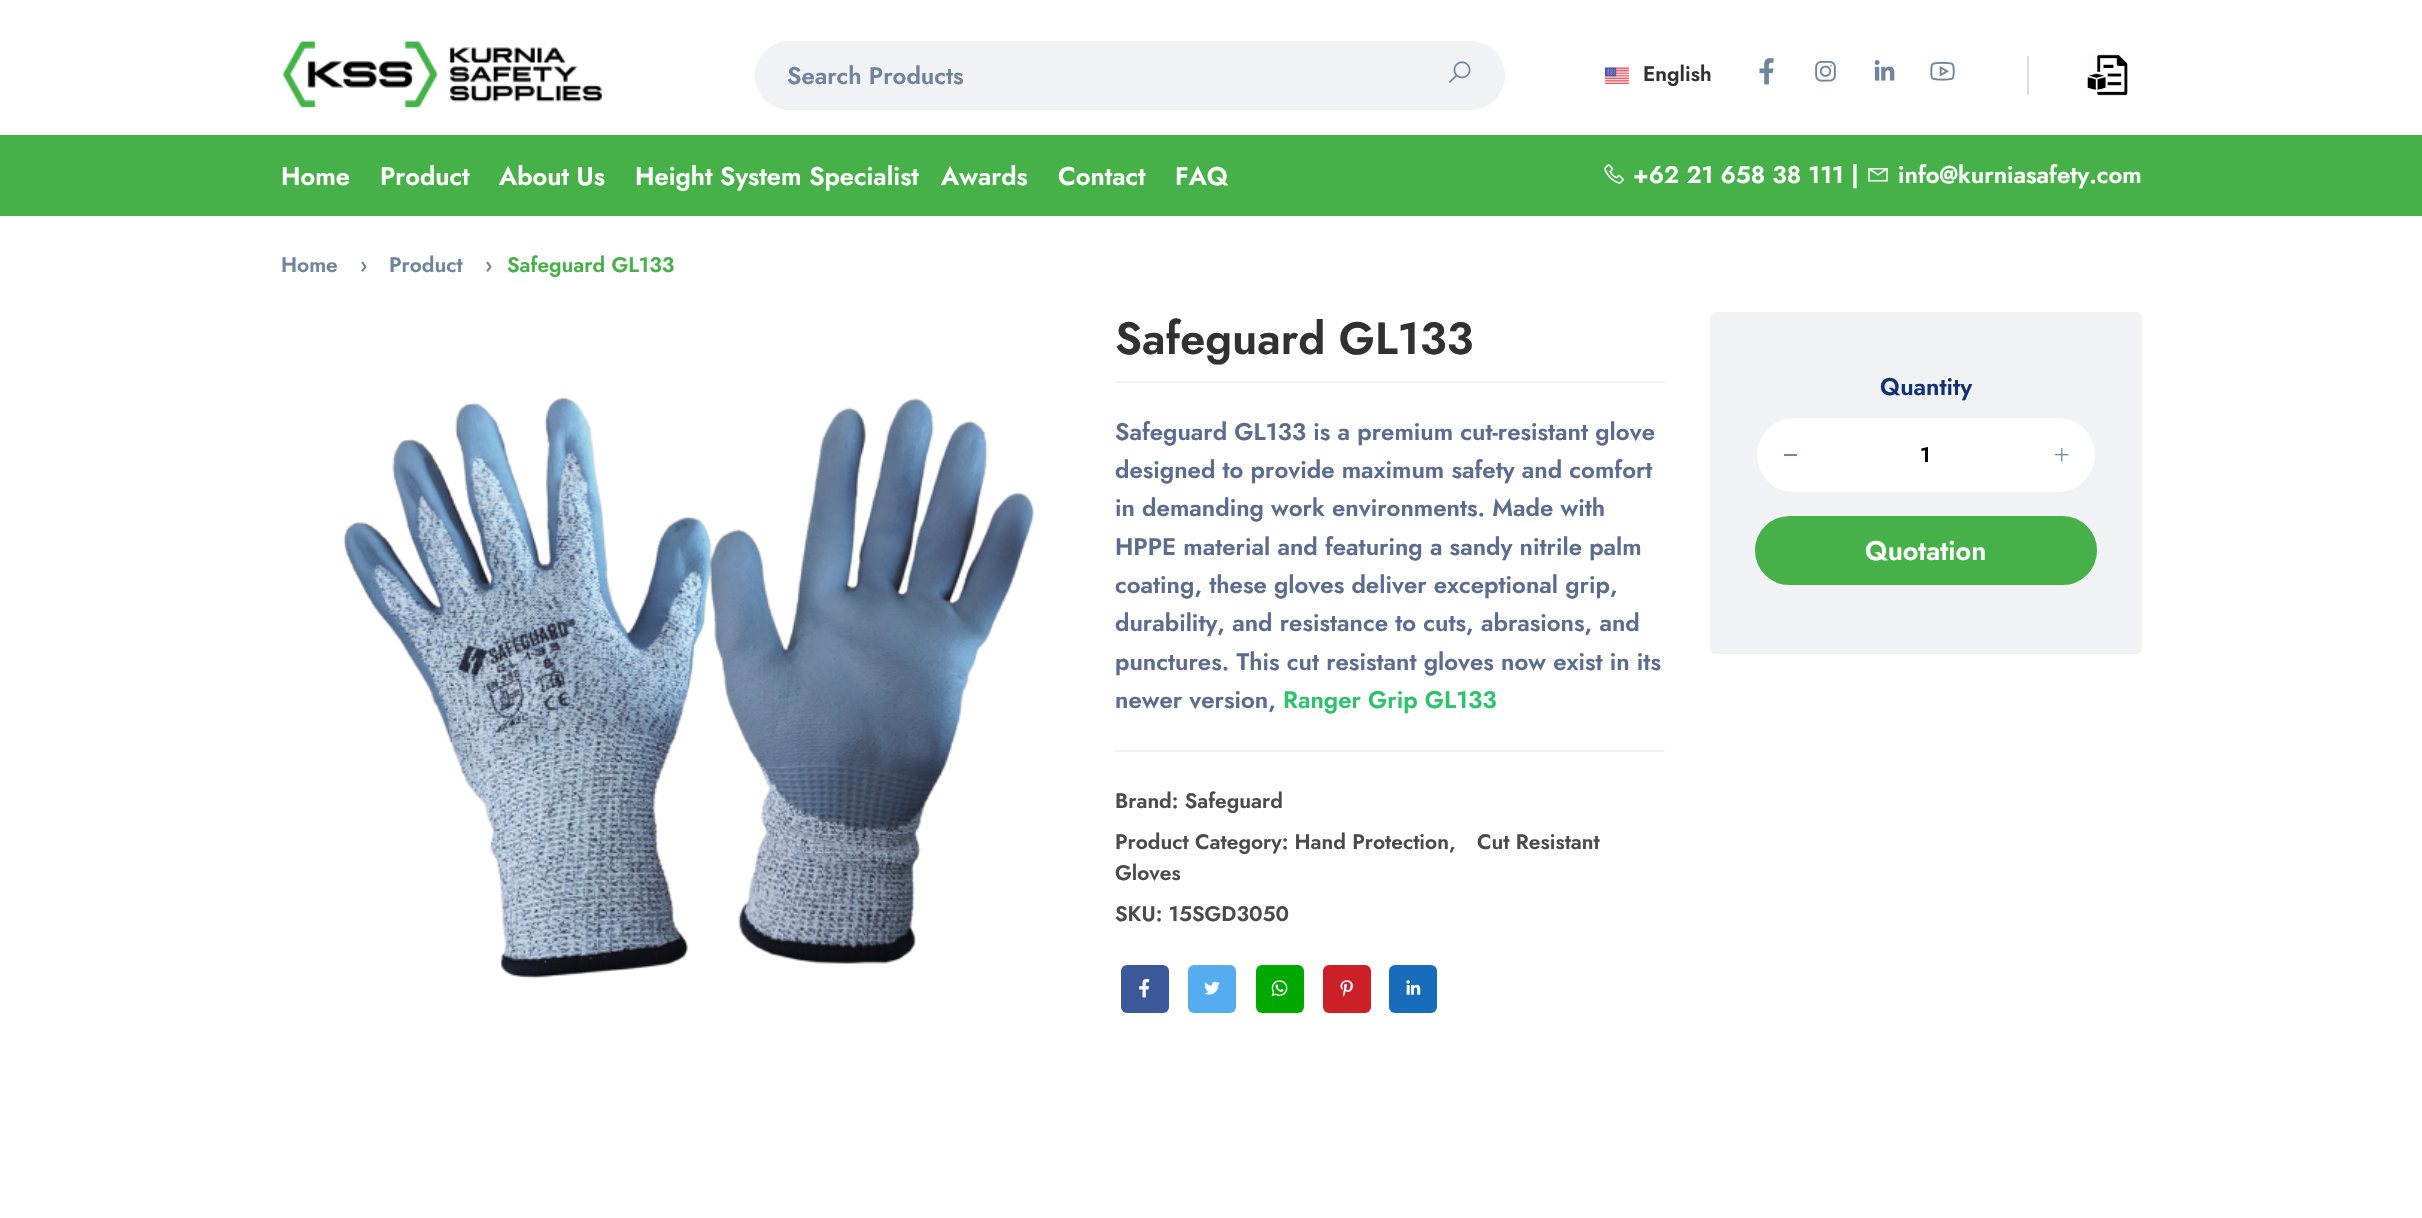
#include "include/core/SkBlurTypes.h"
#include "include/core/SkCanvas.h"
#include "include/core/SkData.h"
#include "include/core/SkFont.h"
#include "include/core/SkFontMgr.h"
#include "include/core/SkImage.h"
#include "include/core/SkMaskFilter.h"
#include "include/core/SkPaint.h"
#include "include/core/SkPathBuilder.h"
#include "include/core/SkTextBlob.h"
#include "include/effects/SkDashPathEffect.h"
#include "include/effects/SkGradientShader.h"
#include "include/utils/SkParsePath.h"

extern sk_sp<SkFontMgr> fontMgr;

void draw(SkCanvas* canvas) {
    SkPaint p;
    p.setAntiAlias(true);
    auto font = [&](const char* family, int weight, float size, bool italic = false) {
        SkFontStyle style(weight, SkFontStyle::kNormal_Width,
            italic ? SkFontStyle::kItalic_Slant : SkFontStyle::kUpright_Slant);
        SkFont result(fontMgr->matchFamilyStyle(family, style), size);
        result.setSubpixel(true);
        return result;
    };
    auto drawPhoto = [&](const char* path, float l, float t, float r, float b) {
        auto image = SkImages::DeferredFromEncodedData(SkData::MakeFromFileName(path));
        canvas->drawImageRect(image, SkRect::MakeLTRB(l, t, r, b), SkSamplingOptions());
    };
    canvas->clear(0xFFFFFFFF);
    drawPhoto("media/1.png", 283, 41, 602, 108);
    p.setColor(0xFFF0F2F5);
    canvas->drawRoundRect(SkRect::MakeLTRB(755, 41, 1505, 110), 34.5f, 34.5f, p);
    canvas->drawPath(SkPathBuilder(SkPathFillType::kEvenOdd).moveTo(790, 41).cubicTo(785, 41, 782, 42, 778, 43).lineTo(1414, 43).lineTo(1414, 108).lineTo(778, 108).cubicTo(782, 109, 785, 110, 790, 110).lineTo(1416, 110).lineTo(1416, 41).close().moveTo(757, 87).cubicTo(754, 80, 754, 71, 757, 64).close().detach(), p);
    auto font1 = font("Jost", 600, 24);
    p.setColor(0xFF70849D);
    canvas->drawString("Search Products", 787, 84, font1, p);
    drawPhoto("media/2.png", 1448, 61, 1471, 83);
    drawPhoto("media/3.png", 1605, 67, 1629, 84);
    auto font2 = font("Jost", 600, 21);
    p.setColor(0xFF313131);
    canvas->drawString("English", 1643, 81, font2, p);
    drawPhoto("media/4.png", 1759, 58, 1774, 85);
    drawPhoto("media/5.png", 1815, 60, 1836, 82);
    drawPhoto("media/6.png", 1874, 60, 1895, 81);
    drawPhoto("media/7.png", 1930, 61, 1955, 81);
    p.setColor(0xFFD9DEE8);
    canvas->drawRect(SkRect::MakeLTRB(2027, 56, 2029, 95), p);
    drawPhoto("media/8.png", 2087, 54, 2128, 96);
    p.setColor(0xFF46B049);
    canvas->drawRect(SkRect::MakeLTRB(0, 135, 2422, 216), p);
    auto font3 = font("Jost", 600, 25.5f);
    p.setColor(0xFFFFFFFF);
    {
        const struct { const char* s; float x, y; } items[] = {
            {"Home", 281, 185},
            {"Product", 380, 185},
            {"About Us", 499, 185},
            {"Height System Specialist", 635, 185},
            {"Awards", 941, 185},
            {"Contact", 1058, 185},
            {"FAQ", 1175, 185},
        };
        for (auto [s, x, y] : items) {
            canvas->drawString(s, x, y, font3, p);
        }
    }
    drawPhoto("media/9.png", 1604, 164, 1624, 184);
    canvas->drawString("+62 21 658 38 111 |", 1633, 183, font1, p);
    drawPhoto("media/10.png", 1868, 168, 1888, 182);
    canvas->drawString("info@kurniasafety.com", 1898, 183, font1, p);
    p.setColor(0xFF70849D);
    {
        const struct { const char* s; float x, y; } items[] = {
            {"Home", 281, 272},
            {"›", 360, 272},
            {"Product", 389, 272},
            {"›", 485, 272},
        };
        for (auto [s, x, y] : items) {
            canvas->drawString(s, x, y, font2, p);
        }
    }
    p.setColor(0xFF46B049);
    canvas->drawString("Safeguard GL133", 507, 272, font2, p);
    drawPhoto("media/11.png", 343, 397, 1034, 979);
    auto font4 = font("Jost", 600, 45);
    p.setColor(0xFF313131);
    canvas->drawString("Safeguard GL133", 1115, 354, font4, p);
    p.setColor(0xFFF0F2F5);
    canvas->drawRect(SkRect::MakeLTRB(1115, 381, 1665, 383), p);
    p.setColor(0xFF5B6C8F);
    {
        const struct { const char* s; float x, y; } items[] = {
            {"Safeguard GL133 is a premium cut-resistant glove", 1115, 440},
            {"designed to provide maximum safety and comfort", 1115, 478},
            {"in demanding work environments. Made with", 1115, 516},
            {"HPPE material and featuring a sandy nitrile palm", 1115, 555},
            {"coating, these gloves deliver exceptional grip,", 1115, 593},
            {"durability, and resistance to cuts, abrasions, and", 1115, 631},
            {"punctures. This cut resistant gloves now exist in its", 1115, 670},
            {"newer version,", 1115, 708},
        };
        for (auto [s, x, y] : items) {
            canvas->drawString(s, x, y, font1, p);
        }
    }
    p.setColor(0xFF2DC26B);
    canvas->drawString("Ranger Grip GL133", 1283, 708, font1, p);
    p.setColor(0xFFF0F2F5);
    canvas->drawRect(SkRect::MakeLTRB(1115, 750, 1665, 752), p);
    p.setColor(0xFF4B4B4B);
    {
        const struct { const char* s; float x, y; } items[] = {
            {"Brand: Safeguard", 1115, 808},
            {"Product Category: Hand Protection,", 1115, 849},
            {"Cut Resistant", 1477, 849},
            {"Gloves", 1115, 880},
            {"SKU: 15SGD3050", 1115, 921},
        };
        for (auto [s, x, y] : items) {
            canvas->drawString(s, x, y, font2, p);
        }
    }
    p.setColor(0xFF3B5998);
    canvas->drawRoundRect(SkRect::MakeLTRB(1121, 965, 1169, 1013), 6, 6, p);
    drawPhoto("media/12.png", 1139, 978, 1150, 998);
    p.setColor(0xFF55ACEE);
    canvas->drawRoundRect(SkRect::MakeLTRB(1188, 965, 1236, 1013), 6, 6, p);
    drawPhoto("media/13.png", 1204, 981, 1220, 995);
    p.setColor(0xFF00A901);
    canvas->drawRoundRect(SkRect::MakeLTRB(1256, 965, 1304, 1013), 6, 6, p);
    drawPhoto("media/14.png", 1271, 980, 1288, 996);
    p.setColor(0xFFCB2027);
    canvas->drawRoundRect(SkRect::MakeLTRB(1323, 965, 1371, 1013), 6, 6, p);
    drawPhoto("media/15.png", 1340, 980, 1353, 997);
    p.setColor(0xFF176DBA);
    canvas->drawRoundRect(SkRect::MakeLTRB(1389, 965, 1437, 1013), 6, 6, p);
    drawPhoto("media/16.png", 1406, 980, 1421, 995);
    p.setColor(0xFFF0F2F5);
    canvas->drawRoundRect(SkRect::MakeLTRB(1710, 312, 2142, 654), 6, 6, p);
    p.setColor(0xFF103178);
    canvas->drawString("Quantity", 1880, 395, font1, p);
    p.setColor(0xFFFFFFFF);
    canvas->drawRoundRect(SkRect::MakeLTRB(1756, 417, 2096, 493), 38, 38, p);
    p.setStyle(SkPaint::kStroke_Style);
    p.setStrokeWidth(2);
    p.setColor(0xFFF0F2F5);
    canvas->drawRoundRect(SkRect::MakeLTRB(1756, 417, 2096, 493), 38, 38, p);
    p.setStyle(SkPaint::kFill_Style);
    p.setColor(0xFF70849D);
    canvas->drawRect(SkRect::MakeLTRB(1784, 454, 1797, 456), p);
    p.setColor(0xFF000000);
    canvas->drawString("1", 1920, 462, font2, p);
    drawPhoto("media/17.png", 2055, 448, 2069, 462);
    p.setColor(0xFF46B049);
    canvas->drawRoundRect(SkRect::MakeLTRB(1756, 517, 2096, 584), 33.5f, 33.5f, p);
    p.setStyle(SkPaint::kStroke_Style);
    canvas->drawRoundRect(SkRect::MakeLTRB(1756, 517, 2096, 584), 33.5f, 33.5f, p);
    auto font5 = font("Jost", 600, 27);
    p.setStyle(SkPaint::kFill_Style);
    p.setColor(0xFFFFFFFF);
    canvas->drawString("Quotation", 1865, 560, font5, p);
}
